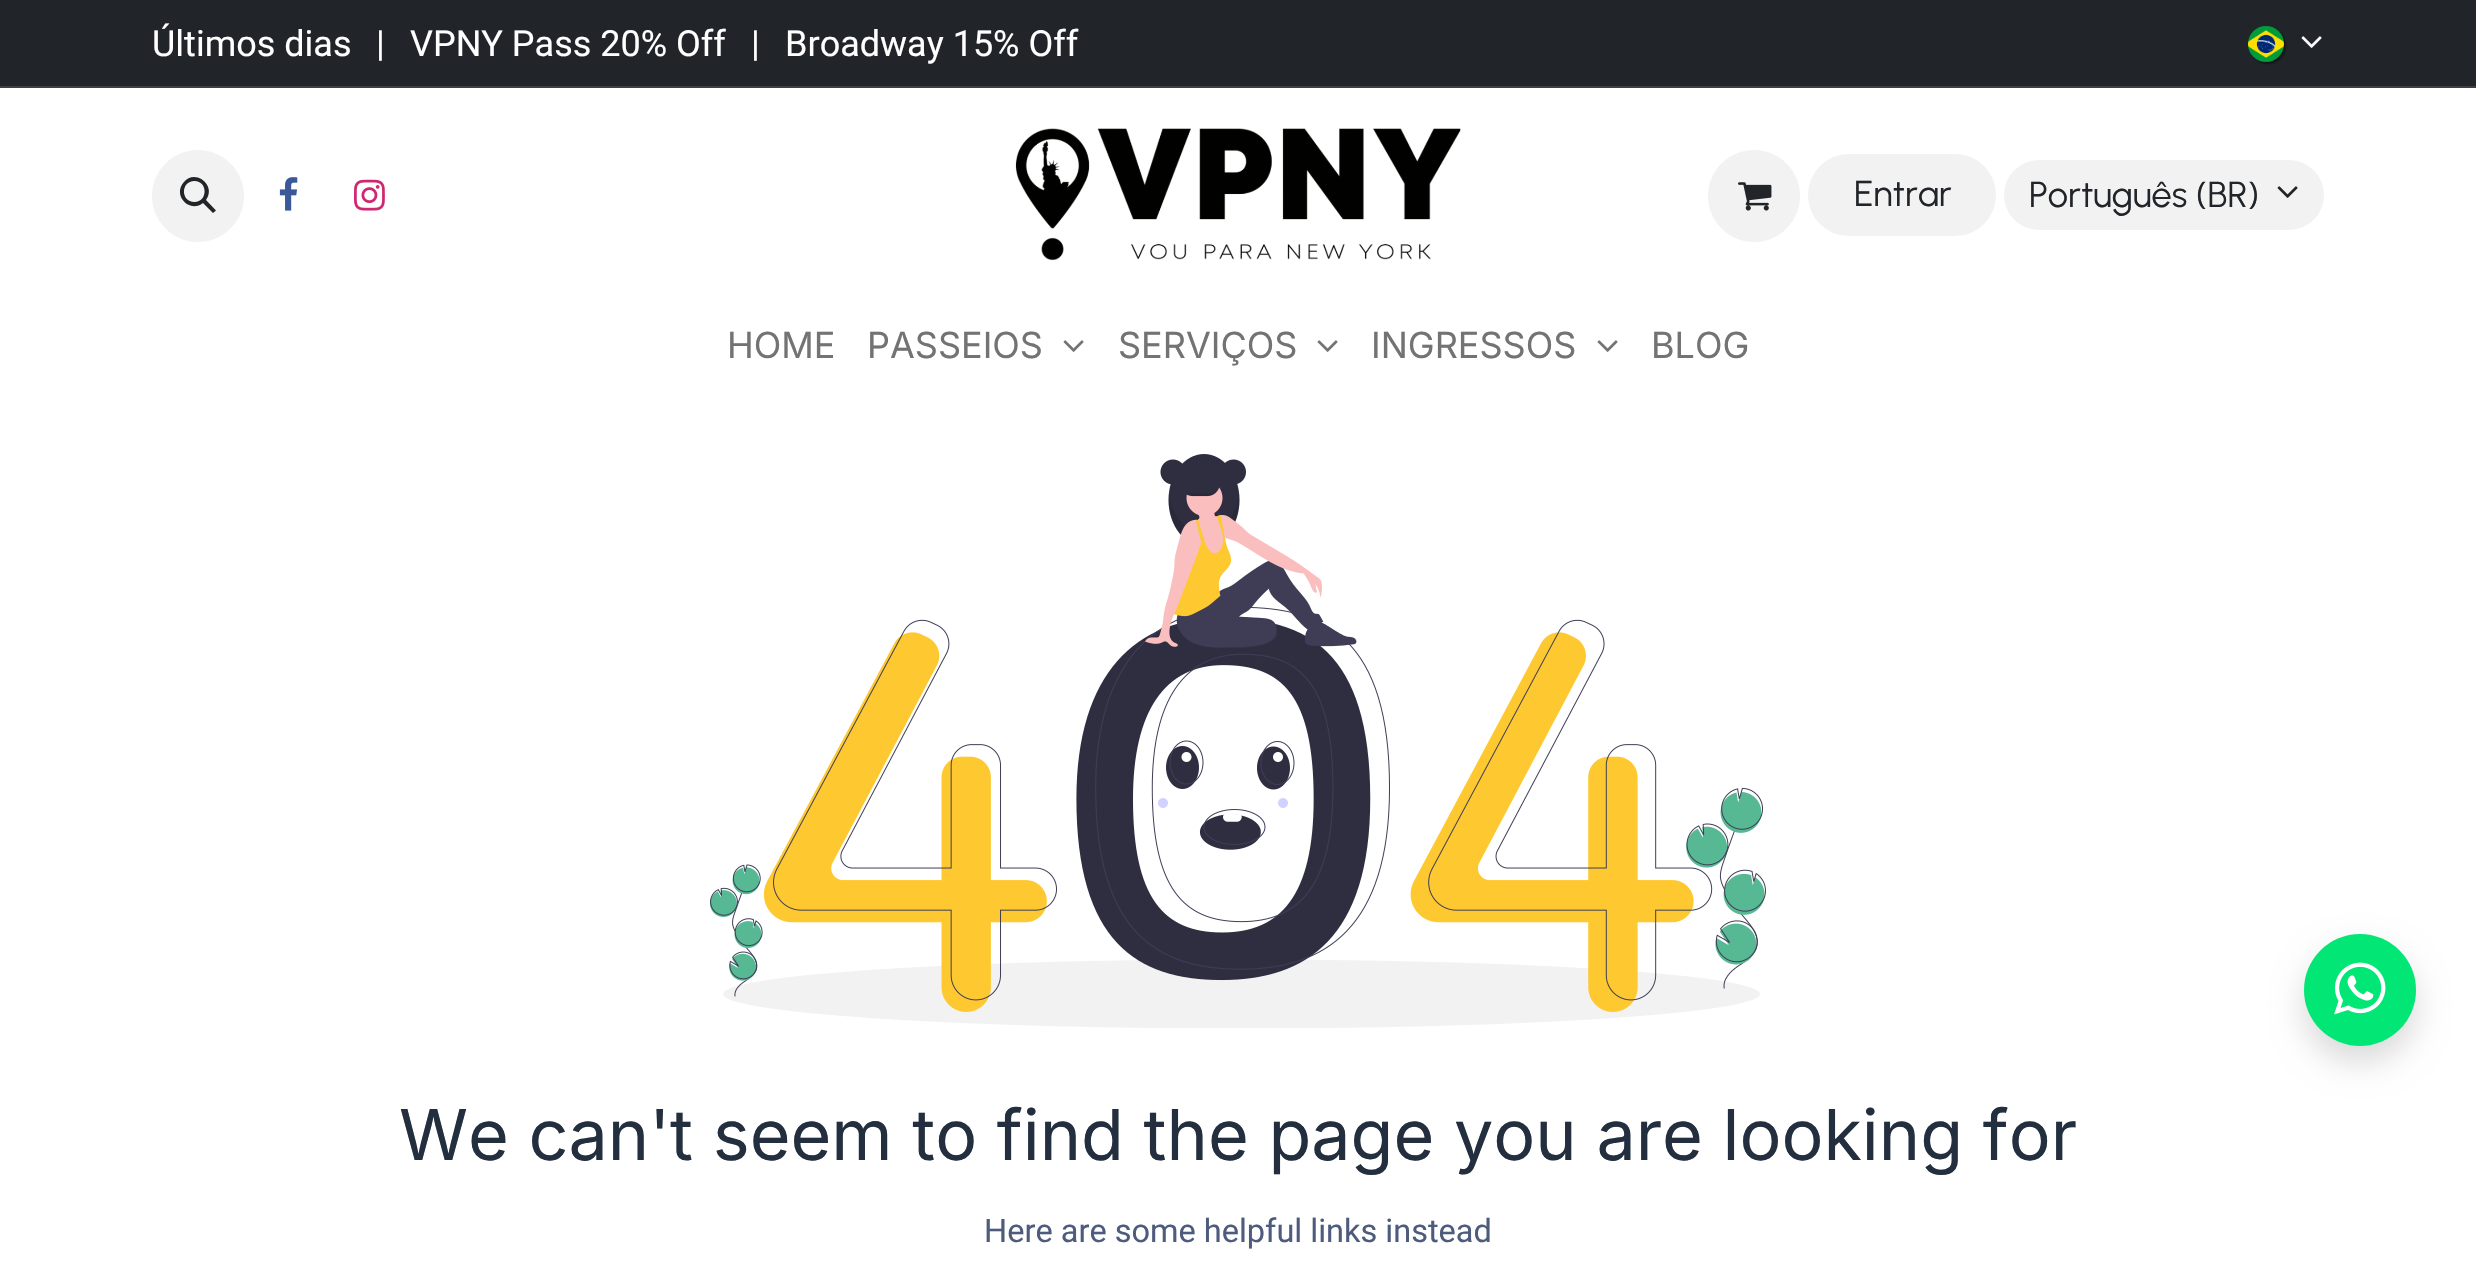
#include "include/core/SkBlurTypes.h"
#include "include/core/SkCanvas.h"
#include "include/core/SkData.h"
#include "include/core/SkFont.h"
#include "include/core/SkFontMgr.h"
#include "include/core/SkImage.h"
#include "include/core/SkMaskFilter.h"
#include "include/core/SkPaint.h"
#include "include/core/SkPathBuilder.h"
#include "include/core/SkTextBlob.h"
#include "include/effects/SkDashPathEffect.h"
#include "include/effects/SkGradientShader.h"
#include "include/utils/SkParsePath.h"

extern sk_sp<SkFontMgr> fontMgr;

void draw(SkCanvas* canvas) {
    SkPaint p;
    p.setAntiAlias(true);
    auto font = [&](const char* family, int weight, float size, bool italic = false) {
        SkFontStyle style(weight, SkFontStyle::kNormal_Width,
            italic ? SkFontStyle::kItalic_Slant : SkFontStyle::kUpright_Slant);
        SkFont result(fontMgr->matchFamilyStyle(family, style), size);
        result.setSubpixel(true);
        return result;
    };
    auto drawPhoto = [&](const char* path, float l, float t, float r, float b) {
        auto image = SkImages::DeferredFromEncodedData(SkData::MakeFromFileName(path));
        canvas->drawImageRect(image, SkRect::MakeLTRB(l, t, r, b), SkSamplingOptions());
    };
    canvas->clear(0xFFFFFFFF);
    p.setColor(0xFF212529);
    canvas->drawRect(SkRect::MakeLTRB(0, 0, 2476, 86), p);
    p.setColor(0xFF3C3F43);
    canvas->drawRect(SkRect::MakeLTRB(0, 86, 2476, 88), p);
    auto font1 = font("Roboto", 400, 36);
    p.setColor(0xFFFFFFFF);
    {
        const struct { const char* s; float x, y; } items[] = {
            {"Últimos dias", 152, 56},
            {"|", 376, 56},
            {"VPNY Pass 20% Off", 410, 56},
            {"|", 751, 56},
            {"Broadway 15% Off", 785, 56},
        };
        for (auto [s, x, y] : items) {
            canvas->drawString(s, x, y, font1, p);
        }
    }
    p.setColor(0x6E000000);
    p.setMaskFilter(SkMaskFilter::MakeBlur(kNormal_SkBlurStyle, 1));
    canvas->drawRoundRect(SkRect::MakeLTRB(2250, 28, 2286, 64), 18, 18, p);
    p.setMaskFilter(nullptr);
    drawPhoto("media/1.png", 2248, 26, 2284, 62);
    drawPhoto("media/2.png", 2301, 36, 2322, 48);
    p.setColor(0xFFF2F2F2);
    canvas->drawCircle(198, 196, 46, p);
    p.setColor(0xFF212529);
    canvas->drawPath(SkPathBuilder().moveTo(183.5f, 182.5f).cubicTo(195, 168, 217, 185.5f, 206, 200).lineTo(216, 210.5f).lineTo(213, 213).lineTo(203, 203).cubicTo(189.5f, 213.5f, 172.5f, 195.5f, 183.5f, 182.5f).close().moveTo(194.5f, 181).cubicTo(180.5f, 181, 180.5f, 202, 194.5f, 202).cubicTo(208, 202, 208, 181, 194.5f, 181).close().detach(), p);
    drawPhoto("media/3.png", 279, 177, 298, 211);
    drawPhoto("media/4.png", 354, 179, 385, 211);
    drawPhoto("media/5.png", 1015, 128, 1461, 261);
    p.setColor(0xFFF2F2F2);
    canvas->drawCircle(1754, 196, 46, p);
    drawPhoto("media/6.png", 1738, 182, 1772, 211);
    canvas->drawRoundRect(SkRect::MakeLTRB(1808, 154, 1996, 236), 41, 41, p);
    auto font2 = font("Urbanist", 400, 36);
    p.setColor(0xFF212529);
    canvas->drawString("Entrar", 1854, 206, font2, p);
    p.setColor(0xFFF2F2F2);
    canvas->drawRoundRect(SkRect::MakeLTRB(2004, 160, 2324, 230), 35, 35, p);
    p.setColor(0xFF212529);
    canvas->drawString("Português (BR)", 2029, 207, font2, p);
    drawPhoto("media/7.png", 2277, 186, 2298, 198);
    auto font3 = font("Inter", 400, 36);
    p.setColor(0xFF737373);
    canvas->drawString("HOME", 727, 358, font3, p);
    canvas->drawString("PASSEIOS", 867, 358, font3, p);
    drawPhoto("media/8.png", 1063, 340, 1084, 352);
    canvas->drawString("SERVIÇOS", 1118, 358, font3, p);
    drawPhoto("media/8.png", 1317, 340, 1338, 352);
    canvas->drawString("INGRESSOS", 1371, 358, font3, p);
    drawPhoto("media/8.png", 1597, 340, 1618, 352);
    canvas->drawString("BLOG", 1651, 358, font3, p);
    drawPhoto("media/9.png", 710, 454, 1766, 1028);
    auto font4 = font("Inter", 400, 70);
    p.setColor(0xFF232F3E);
    canvas->drawString("We can't seem to find the page you are looking for", 399, 1160, font4, p);
    auto font5 = font("Roboto", 400, 32.5f);
    p.setColor(0xFF4D5B7C);
    canvas->drawString("Here are some helpful links instead", 984, 1242, font5, p);
    p.setColor(0x26000000);
    p.setMaskFilter(SkMaskFilter::MakeBlur(kNormal_SkBlurStyle, 16));
    canvas->drawRoundRect(SkRect::MakeLTRB(2304, 950, 2416, 1062), 56, 56, p);
    p.setMaskFilter(nullptr);
    p.setColor(0xFF01E675);
    canvas->drawCircle(2360, 990, 56, p);
    drawPhoto("media/10.png", 2334, 962, 2386, 1015);
}
